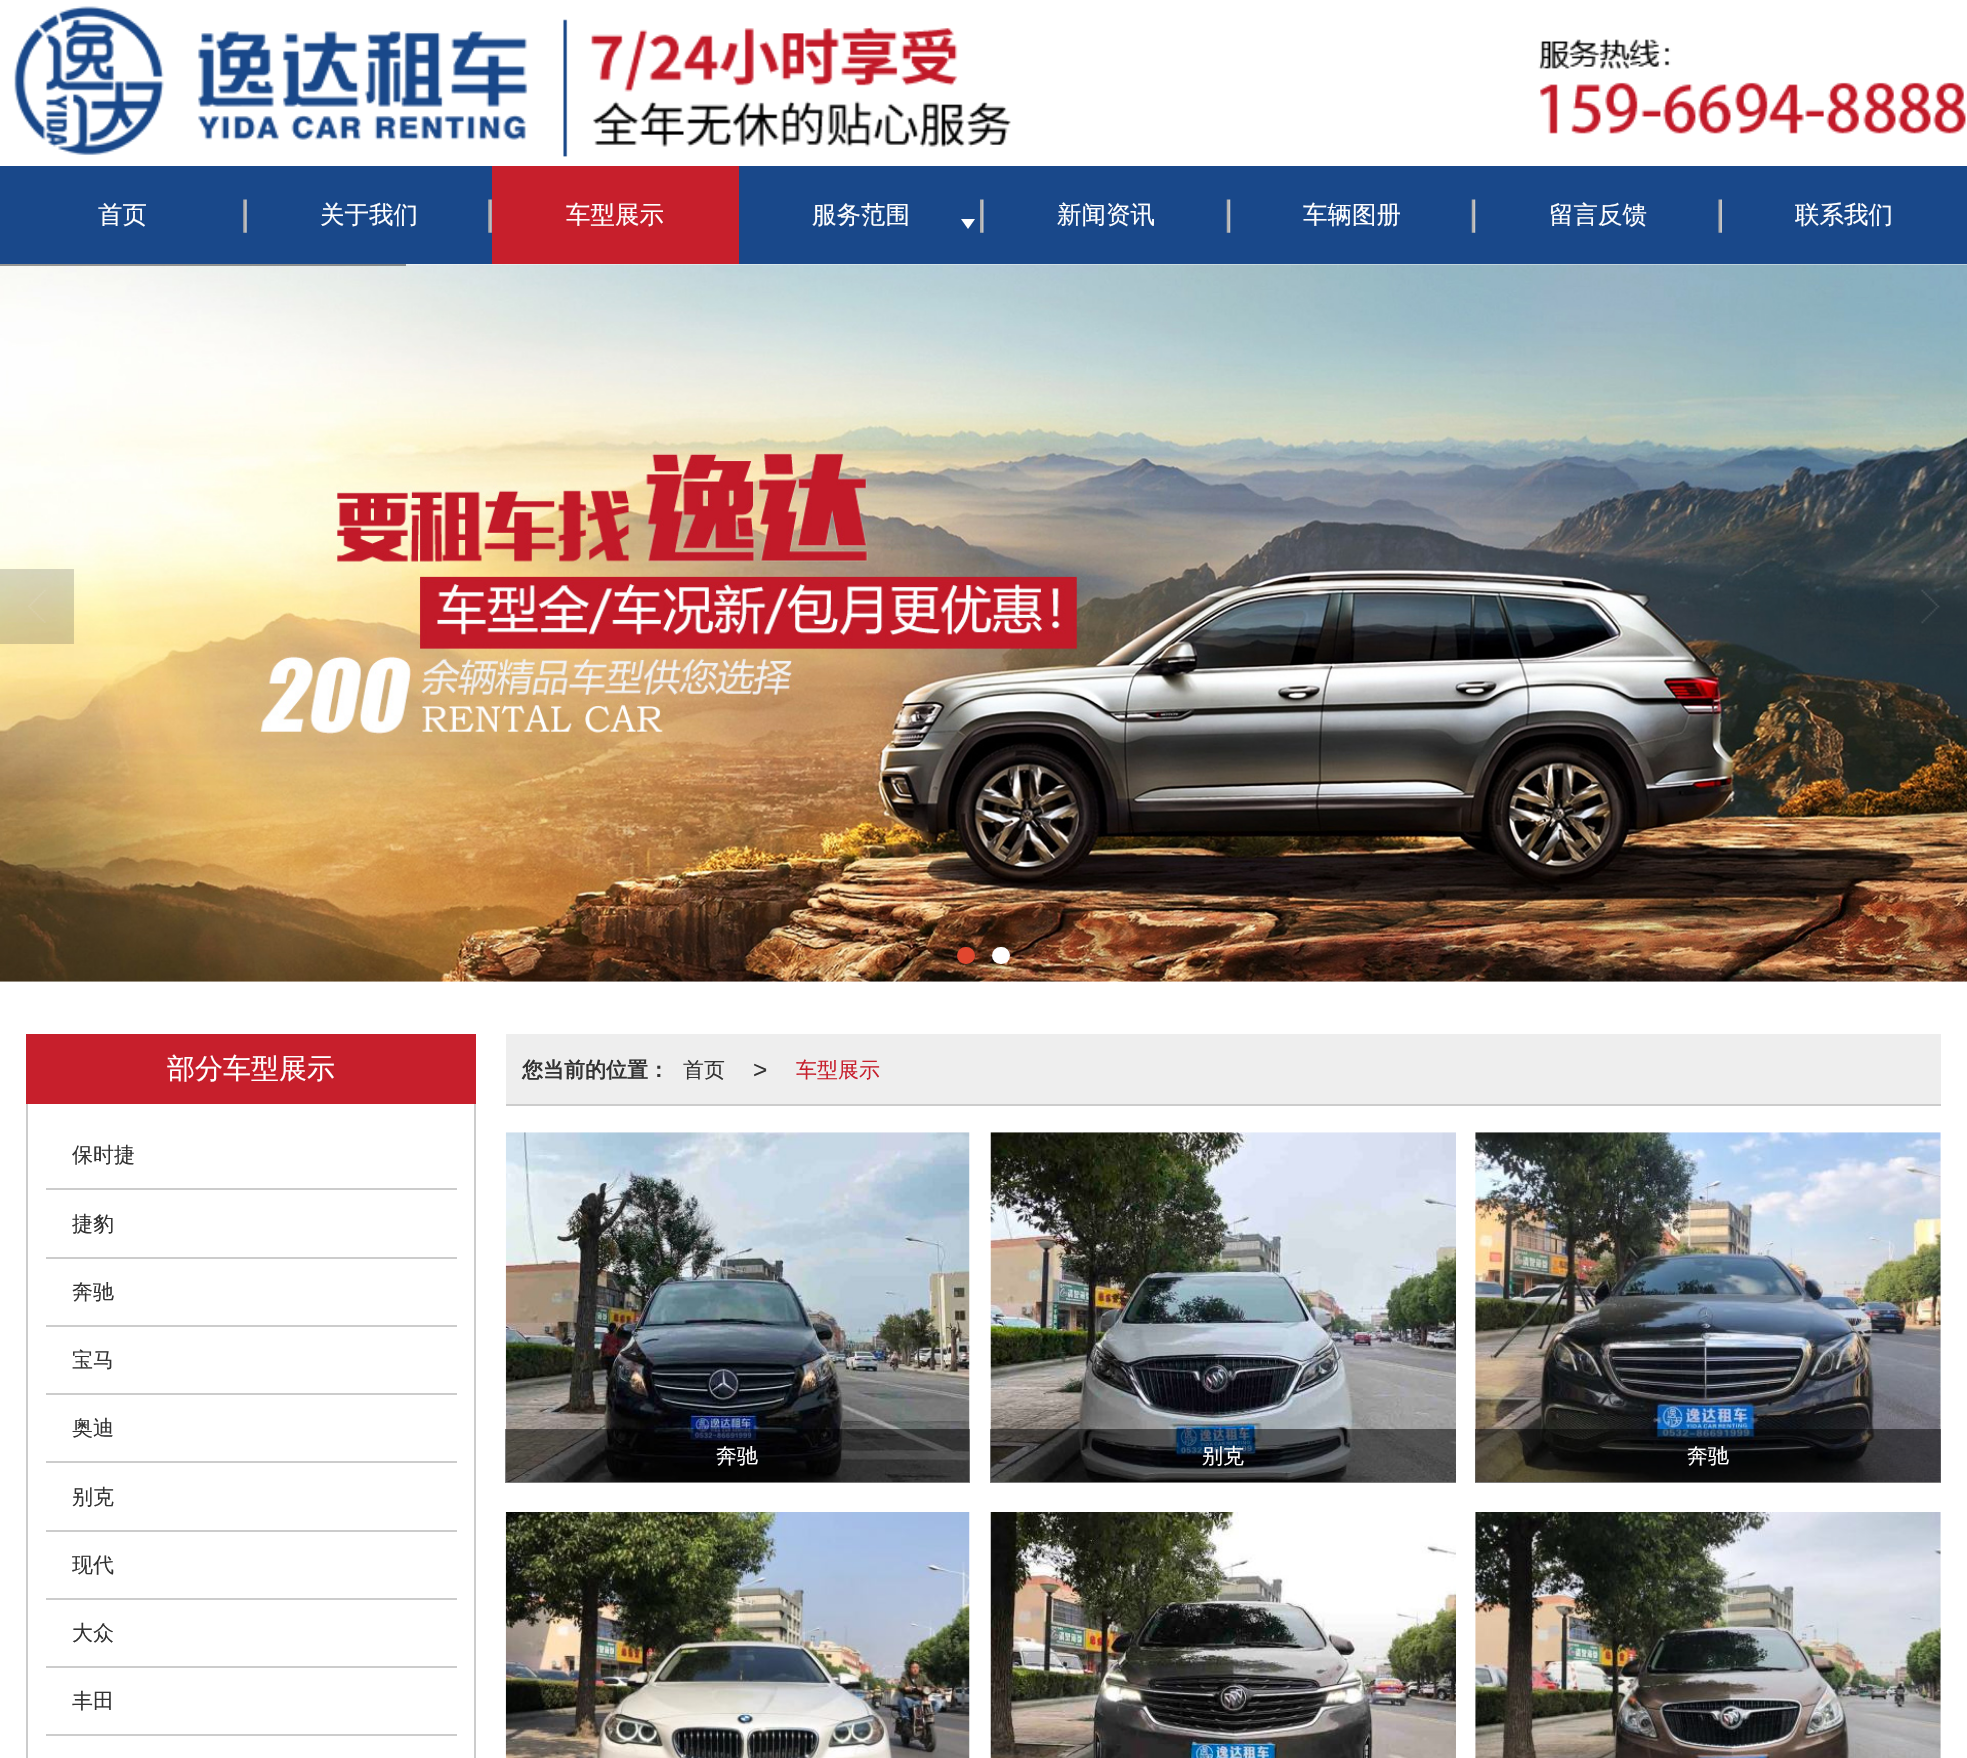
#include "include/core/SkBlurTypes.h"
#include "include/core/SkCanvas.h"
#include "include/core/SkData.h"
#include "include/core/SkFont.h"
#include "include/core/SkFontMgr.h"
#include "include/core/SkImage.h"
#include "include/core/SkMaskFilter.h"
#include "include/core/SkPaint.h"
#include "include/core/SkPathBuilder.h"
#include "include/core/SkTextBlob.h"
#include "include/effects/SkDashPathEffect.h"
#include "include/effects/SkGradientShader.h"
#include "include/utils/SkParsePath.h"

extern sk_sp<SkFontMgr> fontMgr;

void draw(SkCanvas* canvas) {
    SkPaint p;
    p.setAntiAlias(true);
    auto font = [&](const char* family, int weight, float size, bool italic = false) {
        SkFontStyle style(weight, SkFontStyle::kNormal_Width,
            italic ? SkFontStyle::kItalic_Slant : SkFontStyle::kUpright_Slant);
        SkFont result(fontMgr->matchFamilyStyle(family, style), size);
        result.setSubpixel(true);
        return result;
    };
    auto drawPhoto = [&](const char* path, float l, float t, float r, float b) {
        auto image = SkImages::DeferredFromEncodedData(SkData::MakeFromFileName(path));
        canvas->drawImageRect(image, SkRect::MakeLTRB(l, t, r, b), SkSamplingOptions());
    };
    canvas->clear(0xFFFFFFFF);
    drawPhoto("media/1.png", 14, 6, 1966, 157);
    p.setColor(0xFF19488A);
    canvas->drawRect(SkRect::MakeLTRB(0, 166, 1967, 264), p);
    drawPhoto("media/2.png", 243, 199, 247, 233);
    auto font1 = font("WenQuanYi Zen Hei", 500, 24.5f);
    p.setColor(0xFFFFFFFF);
    canvas->drawString("首页", 98, 223, font1, p);
    drawPhoto("media/2.png", 488, 199, 492, 233);
    canvas->drawString("关于我们", 320, 223, font1, p);
    p.setColor(0xFFC71F2C);
    canvas->drawRect(SkRect::MakeLTRB(492, 166, 739, 264), p);
    p.setColor(0xFFFFFFFF);
    canvas->drawString("车型展示", 566, 223, font1, p);
    drawPhoto("media/3.png", 980, 199, 984, 233);
    canvas->drawString("服务范围", 812, 223, font1, p);
    canvas->drawPath(SkPathBuilder().moveTo(961, 219).lineTo(975, 219).lineTo(968, 229).close().detach(), p);
    drawPhoto("media/4.png", 1226, 199, 1231, 233);
    canvas->drawString("新闻资讯", 1057, 223, font1, p);
    drawPhoto("media/4.png", 1471, 199, 1476, 233);
    canvas->drawString("车辆图册", 1303, 223, font1, p);
    drawPhoto("media/5.png", 1718, 199, 1722, 233);
    canvas->drawString("留言反馈", 1549, 223, font1, p);
    canvas->drawString("联系我们", 1795, 223, font1, p);
    drawPhoto("media/6.png", 0, 264, 1967, 982);
    p.setColor(0x66000000);
    canvas->drawRect(SkRect::MakeLTRB(0, 264, 406, 266), p);
    p.setColor(0x33393939);
    canvas->drawRect(SkRect::MakeLTRB(0, 569, 74, 644), p);
    drawPhoto("media/7.png", 28, 590, 46, 623);
    canvas->drawRect(SkRect::MakeLTRB(1894, 569, 1967, 644), p);
    drawPhoto("media/8.png", 1921, 589, 1940, 624);
    p.setColor(0xFFE1472F);
    canvas->drawRoundRect(SkRect::MakeLTRB(957, 947, 975, 964), 8.5f, 8.5f, p);
    p.setColor(0xFFFFFFFF);
    canvas->drawRoundRect(SkRect::MakeLTRB(992, 947, 1010, 964), 8.5f, 8.5f, p);
    p.setColor(0xFFC71F2C);
    canvas->drawRect(SkRect::MakeLTRB(26, 1034, 476, 1104), p);
    auto font2 = font("WenQuanYi Zen Hei", 500, 28);
    p.setColor(0xFFFFFFFF);
    canvas->drawString("部分车型展示", 167, 1078, font2, p);
    {
        const struct { float l, t, r, b; SkColor color; } items[] = {
            {474, 1104, 476, 1758, 0xFFCCCCCC},
            {26, 1104, 28, 1758, 0xFFCCCCCC},
            {46, 1188, 457, 1190, 0xFFCCCCCC},
        };
        for (auto [l, t, r, b, color] : items) {
            p.setColor(color);
            canvas->drawRect(SkRect::MakeLTRB(l, t, r, b), p);
        }
    }
    auto font3 = font("WenQuanYi Zen Hei", 500, 21);
    p.setColor(0xFF333333);
    canvas->drawString("保时捷", 72, 1162, font3, p);
    p.setColor(0xFFCCCCCC);
    canvas->drawRect(SkRect::MakeLTRB(46, 1257, 457, 1259), p);
    p.setColor(0xFF333333);
    canvas->drawString("捷豹", 72, 1231, font3, p);
    p.setColor(0xFFCCCCCC);
    canvas->drawRect(SkRect::MakeLTRB(46, 1325, 457, 1327), p);
    p.setColor(0xFF333333);
    canvas->drawString("奔驰", 72, 1299, font3, p);
    p.setColor(0xFFCCCCCC);
    canvas->drawRect(SkRect::MakeLTRB(46, 1393, 457, 1395), p);
    p.setColor(0xFF333333);
    canvas->drawString("宝马", 72, 1367, font3, p);
    p.setColor(0xFFCCCCCC);
    canvas->drawRect(SkRect::MakeLTRB(46, 1461, 457, 1463), p);
    p.setColor(0xFF333333);
    canvas->drawString("奥迪", 72, 1435, font3, p);
    p.setColor(0xFFCCCCCC);
    canvas->drawRect(SkRect::MakeLTRB(46, 1530, 457, 1532), p);
    p.setColor(0xFF333333);
    canvas->drawString("别克", 72, 1504, font3, p);
    p.setColor(0xFFCCCCCC);
    canvas->drawRect(SkRect::MakeLTRB(46, 1598, 457, 1600), p);
    p.setColor(0xFF333333);
    canvas->drawString("现代", 72, 1572, font3, p);
    p.setColor(0xFFCCCCCC);
    canvas->drawRect(SkRect::MakeLTRB(46, 1666, 457, 1668), p);
    p.setColor(0xFF333333);
    canvas->drawString("大众", 72, 1640, font3, p);
    p.setColor(0xFFCCCCCC);
    canvas->drawRect(SkRect::MakeLTRB(46, 1734, 457, 1736), p);
    p.setColor(0xFF333333);
    canvas->drawString("丰田", 72, 1708, font3, p);
    p.setColor(0xFFEEEEEE);
    canvas->drawRect(SkRect::MakeLTRB(506, 1034, 1941, 1104), p);
    p.setColor(0xFFCCCCCC);
    canvas->drawRect(SkRect::MakeLTRB(506, 1104, 1941, 1106), p);
    auto font4 = font("WenQuanYi Zen Hei", 700, 21);
    p.setColor(0xFF333333);
    canvas->drawString("您当前的位置：", 522, 1077, font4, p);
    canvas->drawString("首页", 683, 1077, font3, p);
    auto font5 = font("Liberation Sans", 400, 24.5f);
    canvas->drawString(">", 753, 1078, font5, p);
    p.setColor(0xFFC71F2C);
    canvas->drawString("车型展示", 796, 1077, font3, p);
    drawPhoto("media/9.png", 505, 1132, 970, 1483);
    p.setColor(0x80000000);
    canvas->drawRect(SkRect::MakeLTRB(505, 1429, 970, 1483), p);
    p.setColor(0xFFFFFFFF);
    canvas->drawString("奔驰", 716, 1463, font3, p);
    drawPhoto("media/10.png", 990, 1132, 1456, 1483);
    p.setColor(0x80000000);
    canvas->drawRect(SkRect::MakeLTRB(990, 1429, 1456, 1483), p);
    p.setColor(0xFFFFFFFF);
    canvas->drawString("别克", 1202, 1463, font3, p);
    drawPhoto("media/11.png", 1475, 1132, 1941, 1483);
    p.setColor(0x80000000);
    canvas->drawRect(SkRect::MakeLTRB(1475, 1429, 1941, 1483), p);
    p.setColor(0xFFFFFFFF);
    canvas->drawString("奔驰", 1687, 1463, font3, p);
    drawPhoto("media/12.png", 505, 1512, 970, 1758);
    drawPhoto("media/13.png", 990, 1512, 1456, 1758);
    drawPhoto("media/14.png", 1475, 1512, 1941, 1758);
}
